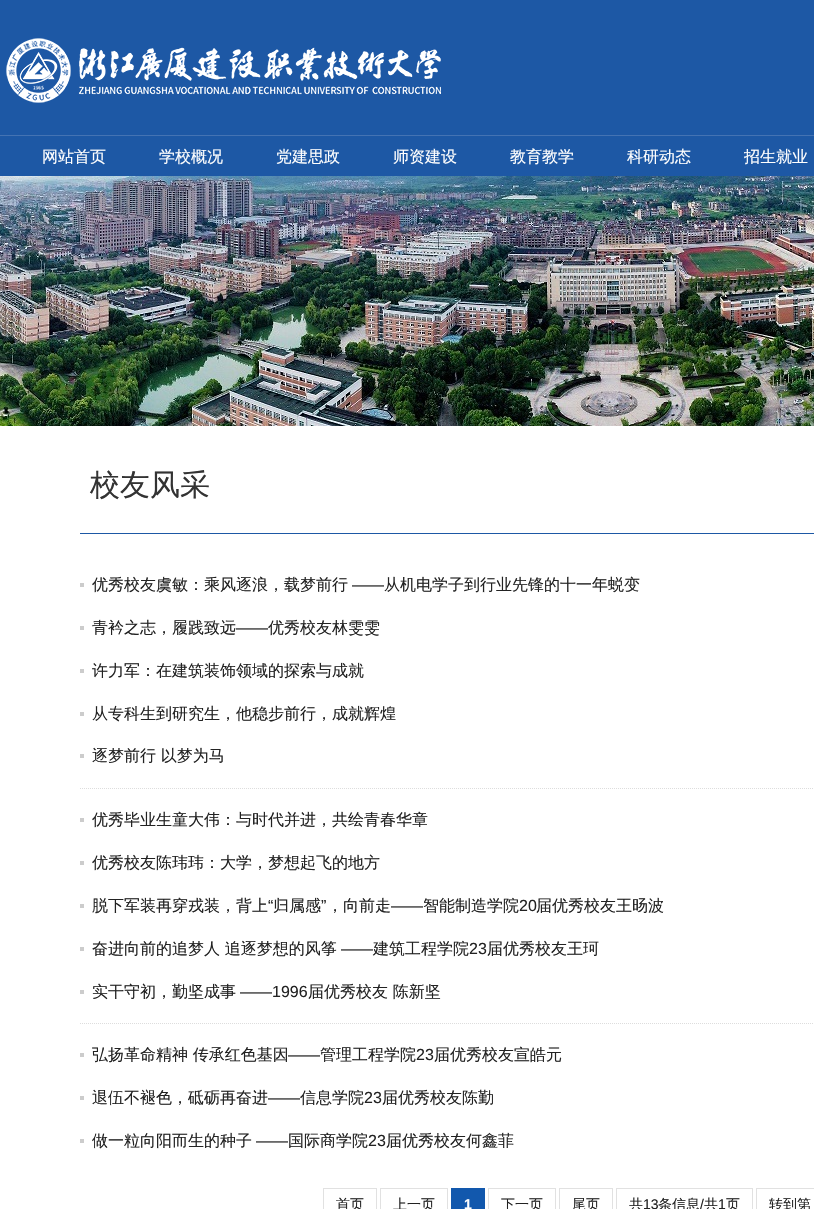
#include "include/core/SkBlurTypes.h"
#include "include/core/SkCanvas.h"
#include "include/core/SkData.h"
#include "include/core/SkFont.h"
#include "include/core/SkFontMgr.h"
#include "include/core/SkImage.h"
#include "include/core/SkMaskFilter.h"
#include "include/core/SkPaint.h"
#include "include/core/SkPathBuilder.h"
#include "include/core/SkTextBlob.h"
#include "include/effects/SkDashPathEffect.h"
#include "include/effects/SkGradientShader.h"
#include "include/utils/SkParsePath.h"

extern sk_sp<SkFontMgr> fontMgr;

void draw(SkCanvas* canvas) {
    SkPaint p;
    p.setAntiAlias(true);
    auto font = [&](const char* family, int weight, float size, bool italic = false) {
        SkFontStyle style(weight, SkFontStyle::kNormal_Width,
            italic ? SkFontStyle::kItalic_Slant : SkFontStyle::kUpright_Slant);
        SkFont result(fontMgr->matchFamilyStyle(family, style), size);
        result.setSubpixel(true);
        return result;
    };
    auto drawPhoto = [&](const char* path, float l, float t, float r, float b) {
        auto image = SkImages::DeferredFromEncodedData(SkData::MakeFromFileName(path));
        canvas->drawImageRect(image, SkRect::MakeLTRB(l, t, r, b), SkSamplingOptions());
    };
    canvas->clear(0xFFFFFFFF);
    p.setColor(0xFF1D58A5);
    canvas->drawRect(SkRect::MakeLTRB(0, 0, 814, 176), p);
    p.setColor(0xFF4473B3);
    canvas->drawRect(SkRect::MakeLTRB(0, 135, 814, 136), p);
    drawPhoto("media/1.png", 6, 38, 441, 103);
    auto font1 = font("WenQuanYi Zen Hei", 500, 16);
    p.setColor(0xFFFFFFFF);
    {
        const struct { const char* s; float x, y; } items[] = {
            {"网站首页", 42, 162},
            {"学校概况", 159, 162},
            {"党建思政", 276, 162},
            {"师资建设", 393, 162},
            {"教育教学", 510, 162},
            {"科研动态", 627, 162},
            {"招生就业", 744, 162},
        };
        for (auto [s, x, y] : items) {
            canvas->drawString(s, x, y, font1, p);
        }
    }
    drawPhoto("media/2.png", 0, 176, 814, 426);
    p.setColor(0xFF1D58A5);
    canvas->drawRect(SkRect::MakeLTRB(80, 533, 814, 534), p);
    auto font2 = font("WenQuanYi Zen Hei", 500, 30);
    p.setColor(0xFF333333);
    canvas->drawString("校友风采", 90, 495, font2, p);
    p.setColor(0xFFCCCCCC);
    canvas->drawRect(SkRect::MakeLTRB(80, 583, 84, 587), p);
    p.setColor(0xFF222222);
    canvas->drawString("优秀校友虞敏：乘风逐浪，载梦前行", 92, 590, font1, p);
    auto font3 = font("Liberation Sans", 400, 16);
    canvas->drawString("——", 352, 590, font3, p);
    canvas->drawString("从机电学子到行业先锋的十一年蜕变", 384, 590, font1, p);
    p.setColor(0xFFCCCCCC);
    canvas->drawRect(SkRect::MakeLTRB(80, 626, 84, 630), p);
    p.setColor(0xFF222222);
    canvas->drawString("青衿之志，履践致远", 92, 633, font1, p);
    canvas->drawString("——", 236, 633, font3, p);
    canvas->drawString("优秀校友林雯雯", 268, 633, font1, p);
    p.setColor(0xFFCCCCCC);
    canvas->drawRect(SkRect::MakeLTRB(80, 669, 84, 673), p);
    p.setColor(0xFF222222);
    canvas->drawString("许力军：在建筑装饰领域的探索与成就", 92, 676, font1, p);
    p.setColor(0xFFCCCCCC);
    canvas->drawRect(SkRect::MakeLTRB(80, 712, 84, 716), p);
    p.setColor(0xFF222222);
    canvas->drawString("从专科生到研究生，他稳步前行，成就辉煌", 92, 719, font1, p);
    p.setColor(0xFFCCCCCC);
    canvas->drawRect(SkRect::MakeLTRB(80, 754, 84, 758), p);
    p.setColor(0xFF222222);
    canvas->drawString("逐梦前行 以梦为马", 92, 761, font1, p);
    p.setStyle(SkPaint::kStroke_Style);
    p.setStrokeWidth(1);
    p.setColor(0xFFDDDDDD);
    p.setPathEffect(SkDashPathEffect::Make({{1, 1}}, 0));
    canvas->drawPath(SkPathBuilder().moveTo(80, 788.5f).lineTo(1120, 788.5f).detach(), p);
    p.setPathEffect(nullptr);
    p.setStyle(SkPaint::kFill_Style);
    p.setColor(0xFFCCCCCC);
    canvas->drawRect(SkRect::MakeLTRB(80, 818, 84, 822), p);
    p.setColor(0xFF222222);
    canvas->drawString("优秀毕业生童大伟：与时代并进，共绘青春华章", 92, 825, font1, p);
    p.setColor(0xFFCCCCCC);
    canvas->drawRect(SkRect::MakeLTRB(80, 861, 84, 865), p);
    p.setColor(0xFF222222);
    canvas->drawString("优秀校友陈玮玮：大学，梦想起飞的地方", 92, 868, font1, p);
    p.setColor(0xFFCCCCCC);
    canvas->drawRect(SkRect::MakeLTRB(80, 904, 84, 908), p);
    p.setColor(0xFF222222);
    canvas->drawString("脱下军装再穿戎装，背上", 92, 911, font1, p);
    canvas->drawString("“", 268, 911, font3, p);
    canvas->drawString("归属感", 273, 911, font1, p);
    canvas->drawString("”", 321, 911, font3, p);
    canvas->drawString("，向前走", 327, 911, font1, p);
    canvas->drawString("智能制造学院", 423, 911, font1, p);
    canvas->drawString("20", 519, 911, font3, p);
    canvas->drawString("届优秀校友王旸波", 536, 911, font1, p);
    canvas->drawString("——", 391, 911, font3, p);
    p.setColor(0xFFCCCCCC);
    canvas->drawRect(SkRect::MakeLTRB(80, 947, 84, 951), p);
    p.setColor(0xFF222222);
    canvas->drawString("奋进向前的追梦人 追逐梦想的风筝", 92, 954, font1, p);
    canvas->drawString("——", 341, 954, font3, p);
    canvas->drawString("建筑工程学院", 373, 954, font1, p);
    canvas->drawString("23", 469, 954, font3, p);
    canvas->drawString("届优秀校友王珂", 487, 954, font1, p);
    p.setColor(0xFFCCCCCC);
    canvas->drawRect(SkRect::MakeLTRB(80, 990, 84, 994), p);
    p.setColor(0xFF222222);
    canvas->drawString("实干守初，勤坚成事", 92, 997, font1, p);
    canvas->drawString("——1996", 240, 997, font3, p);
    canvas->drawString("届优秀校友 陈新坚", 308, 997, font1, p);
    p.setStyle(SkPaint::kStroke_Style);
    p.setColor(0xFFDDDDDD);
    p.setPathEffect(SkDashPathEffect::Make({{1, 1}}, 0));
    canvas->drawPath(SkPathBuilder().moveTo(80, 1023.5f).lineTo(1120, 1023.5f).detach(), p);
    p.setPathEffect(nullptr);
    p.setStyle(SkPaint::kFill_Style);
    p.setColor(0xFFCCCCCC);
    canvas->drawRect(SkRect::MakeLTRB(80, 1053, 84, 1057), p);
    p.setColor(0xFF222222);
    canvas->drawString("弘扬革命精神 传承红色基因", 92, 1060, font1, p);
    canvas->drawString("——", 288, 1060, font3, p);
    canvas->drawString("管理工程学院", 320, 1060, font1, p);
    canvas->drawString("23", 416, 1060, font3, p);
    canvas->drawString("届优秀校友宣皓元", 434, 1060, font1, p);
    p.setColor(0xFFCCCCCC);
    canvas->drawRect(SkRect::MakeLTRB(80, 1096, 84, 1100), p);
    p.setColor(0xFF222222);
    canvas->drawString("退伍不褪色，砥砺再奋进", 92, 1103, font1, p);
    canvas->drawString("——", 268, 1103, font3, p);
    canvas->drawString("信息学院", 300, 1103, font1, p);
    canvas->drawString("23", 364, 1103, font3, p);
    canvas->drawString("届优秀校友陈勤", 382, 1103, font1, p);
    p.setColor(0xFFCCCCCC);
    canvas->drawRect(SkRect::MakeLTRB(80, 1139, 84, 1143), p);
    p.setColor(0xFF222222);
    canvas->drawString("做一粒向阳而生的种子", 92, 1146, font1, p);
    canvas->drawString("——", 256, 1146, font3, p);
    canvas->drawString("国际商学院", 288, 1146, font1, p);
    canvas->drawString("23", 368, 1146, font3, p);
    canvas->drawString("届优秀校友何鑫菲", 386, 1146, font1, p);
    p.setStyle(SkPaint::kStroke_Style);
    p.setColor(0xFFE1E1E1);
    canvas->drawRect(SkRect::MakeLTRB(323.5f, 1188.5f, 376.5f, 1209.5f), p);
    auto font4 = font("WenQuanYi Zen Hei", 500, 14);
    p.setStyle(SkPaint::kFill_Style);
    p.setColor(0xFF222222);
    canvas->drawString("首页", 336, 1209, font4, p);
    p.setStyle(SkPaint::kStroke_Style);
    p.setColor(0xFFE1E1E1);
    canvas->drawRect(SkRect::MakeLTRB(380.5f, 1188.5f, 447.5f, 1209.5f), p);
    p.setStyle(SkPaint::kFill_Style);
    p.setColor(0xFF222222);
    canvas->drawString("上一页", 393, 1209, font4, p);
    p.setColor(0xFF1258AD);
    canvas->drawRect(SkRect::MakeLTRB(451, 1188, 485, 1209), p);
    auto font5 = font("Liberation Sans", 700, 14);
    p.setColor(0xFFFFFFFF);
    canvas->drawString("1", 464, 1209, font5, p);
    p.setStyle(SkPaint::kStroke_Style);
    p.setColor(0xFFE1E1E1);
    canvas->drawRect(SkRect::MakeLTRB(488.5f, 1188.5f, 555.5f, 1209.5f), p);
    p.setStyle(SkPaint::kFill_Style);
    p.setColor(0xFF222222);
    canvas->drawString("下一页", 501, 1209, font4, p);
    p.setStyle(SkPaint::kStroke_Style);
    p.setColor(0xFFE1E1E1);
    canvas->drawRect(SkRect::MakeLTRB(559.5f, 1188.5f, 612.5f, 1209.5f), p);
    p.setStyle(SkPaint::kFill_Style);
    p.setColor(0xFF222222);
    canvas->drawString("尾页", 572, 1209, font4, p);
    p.setStyle(SkPaint::kStroke_Style);
    p.setColor(0xFFE1E1E1);
    canvas->drawRect(SkRect::MakeLTRB(616.5f, 1188.5f, 752.5f, 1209.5f), p);
    p.setStyle(SkPaint::kFill_Style);
    p.setColor(0xFF222222);
    canvas->drawString("共", 629, 1209, font4, p);
    auto font6 = font("Liberation Sans", 400, 14);
    canvas->drawString("13", 643, 1209, font6, p);
    canvas->drawString("条信息", 658, 1209, font4, p);
    canvas->drawString("/", 700, 1209, font6, p);
    canvas->drawString("共", 704, 1209, font4, p);
    canvas->drawString("1", 718, 1209, font6, p);
    canvas->drawString("页", 726, 1209, font4, p);
    p.setStyle(SkPaint::kStroke_Style);
    p.setColor(0xFFE1E1E1);
    canvas->drawRect(SkRect::MakeLTRB(756.5f, 1188.5f, 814.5f, 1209.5f), p);
    p.setStyle(SkPaint::kFill_Style);
    p.setColor(0xFF222222);
    canvas->drawString("转到第", 769, 1209, font4, p);
}
